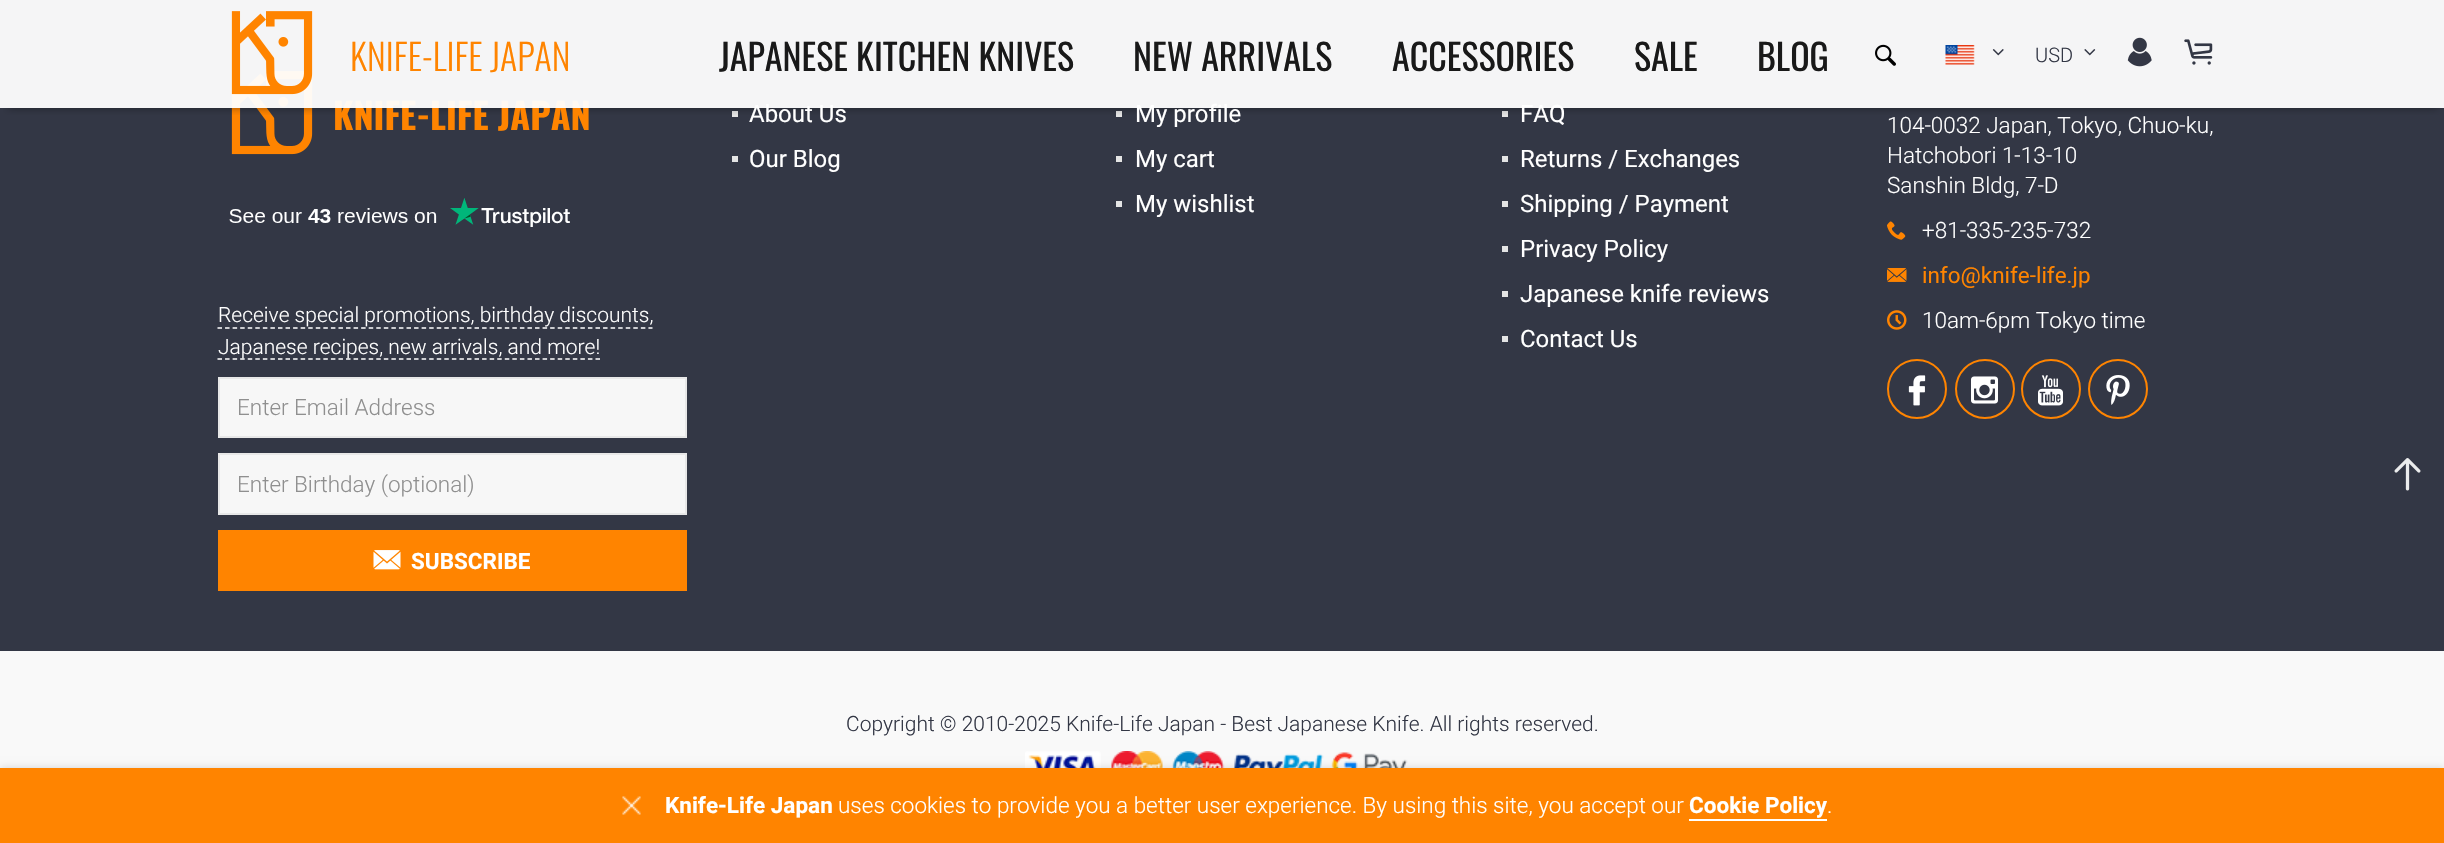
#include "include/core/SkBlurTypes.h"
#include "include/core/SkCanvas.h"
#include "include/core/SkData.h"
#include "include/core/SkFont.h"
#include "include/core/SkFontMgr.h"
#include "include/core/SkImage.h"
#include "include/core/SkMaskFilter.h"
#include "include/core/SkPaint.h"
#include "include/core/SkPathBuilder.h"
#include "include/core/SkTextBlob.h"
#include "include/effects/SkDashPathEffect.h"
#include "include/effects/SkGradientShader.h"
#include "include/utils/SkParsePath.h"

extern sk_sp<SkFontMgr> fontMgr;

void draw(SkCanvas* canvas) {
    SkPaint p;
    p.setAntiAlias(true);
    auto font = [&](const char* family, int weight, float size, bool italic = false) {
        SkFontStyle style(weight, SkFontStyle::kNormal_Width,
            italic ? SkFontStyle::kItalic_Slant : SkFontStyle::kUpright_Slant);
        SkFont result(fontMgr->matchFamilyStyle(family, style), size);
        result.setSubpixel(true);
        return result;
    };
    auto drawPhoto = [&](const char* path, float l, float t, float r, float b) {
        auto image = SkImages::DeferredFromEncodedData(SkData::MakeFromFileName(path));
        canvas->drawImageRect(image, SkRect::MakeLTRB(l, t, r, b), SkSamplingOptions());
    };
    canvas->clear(0xFF333745);
    drawPhoto("media/8.png", 231, 71, 313, 155);
    {
        const struct { float l, t, r, b; SkColor color; } items[] = {
            {732, 111, 738, 117, 0xFFE4E4E4},
            {1116, 111, 1122, 117, 0xFFE4E4E4},
            {1502, 111, 1508, 117, 0xFFE4E4E4},
        };
        for (auto [l, t, r, b, color] : items) {
            p.setColor(color);
            canvas->drawRect(SkRect::MakeLTRB(l, t, r, b), p);
        }
    }
    canvas->save();
    canvas->clipRect(SkRect::MakeLTRB(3, 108, 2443, 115));
    p.setColor(0x66000000);
    p.setMaskFilter(SkMaskFilter::MakeBlur(kNormal_SkBlurStyle, 4));
    canvas->drawRect(SkRect::MakeLTRB(8, 15, 2438, 108), p);
    p.setMaskFilter(nullptr);
    canvas->restore();
    auto font1 = font("Oswald", 700, 36);
    p.setColor(0xFFFF8400);
    canvas->drawString("KNIFE-LIFE JAPAN", 333, 130, font1, p);
    auto font2 = font("Roboto", 400, 24);
    p.setColor(0xFFFFFFFF);
    {
        const struct { const char* s; float x, y; } items[] = {
            {"About Us", 749, 122},
            {"My profile", 1135, 122},
            {"FAQ", 1520, 122},
        };
        for (auto [s, x, y] : items) {
            canvas->drawString(s, x, y, font2, p);
        }
    }
    p.setColor(0xF2FFFFFF);
    canvas->drawRect(SkRect::MakeLTRB(0, 0, 2444, 108), p);
    drawPhoto("media/1.png", 231, 11, 313, 95);
    auto font3 = font("Oswald", 300, 36);
    p.setColor(0xFFFF8400);
    canvas->drawString("KNIFE-LIFE JAPAN", 350, 71, font3, p);
    auto font4 = font("Oswald", 400, 36);
    p.setColor(0xFF191919);
    {
        const struct { const char* s; float x, y; } items[] = {
            {"JAPANESE KITCHEN KNIVES", 719, 71},
            {"NEW ARRIVALS", 1133, 71},
            {"ACCESSORIES", 1392, 71},
            {"SALE", 1634, 71},
            {"BLOG", 1757, 71},
        };
        for (auto [s, x, y] : items) {
            canvas->drawString(s, x, y, font4, p);
        }
    }
    drawPhoto("media/2.png", 1875, 44, 1896, 66);
    drawPhoto("media/3.png", 1945, 45, 1975, 65);
    drawPhoto("media/4.png", 1992, 49, 2004, 56);
    auto font5 = font("Roboto", 300, 20);
    p.setColor(0xFF333745);
    canvas->drawString("USD", 2035, 62, font5, p);
    drawPhoto("media/5.png", 2084, 49, 2096, 56);
    drawPhoto("media/6.png", 2127, 37, 2152, 67);
    drawPhoto("media/7.png", 2184, 39, 2213, 65);
    drawPhoto("media/9.png", 229, 198, 570, 227);
    auto font6 = font("Roboto", 300, 21);
    p.setColor(0xFFFFFFFF);
    canvas->drawString("Receive special promotions, birthday discounts,", 218, 322, font6, p);
    p.setStyle(SkPaint::kStroke_Style);
    p.setStrokeWidth(1.5f);
    p.setPathEffect(SkDashPathEffect::Make({{4.5f, 3.06f}}, 0));
    canvas->drawPath(SkPathBuilder().moveTo(217.5f, 328).lineTo(652.5f, 328).detach(), p);
    p.setPathEffect(nullptr);
    p.setPathEffect(SkDashPathEffect::Make({{4.5f, 3.06f}}, 0));
    canvas->drawPath(SkPathBuilder().moveTo(217.5f, 359).lineTo(600, 359).detach(), p);
    p.setPathEffect(nullptr);
    p.setStyle(SkPaint::kFill_Style);
    canvas->drawString("Japanese recipes, new arrivals, and more!", 218, 354, font6, p);
    p.setColor(0xFFF7F7F7);
    canvas->drawRect(SkRect::MakeLTRB(219, 378, 686, 437), p);
    p.setStyle(SkPaint::kStroke_Style);
    p.setStrokeWidth(2);
    p.setColor(0xFFE8E8E8);
    canvas->drawRect(SkRect::MakeLTRB(219, 378, 686, 437), p);
    auto font7 = font("Roboto", 300, 22.5f);
    p.setStyle(SkPaint::kFill_Style);
    p.setColor(0xFF8F8F8F);
    canvas->drawString("Enter Email Address", 237, 415, font7, p);
    p.setColor(0xFFF7F7F7);
    canvas->drawRect(SkRect::MakeLTRB(219, 454, 686, 514), p);
    p.setStyle(SkPaint::kStroke_Style);
    p.setColor(0xFFE8E8E8);
    canvas->drawRect(SkRect::MakeLTRB(219, 454, 686, 514), p);
    p.setStyle(SkPaint::kFill_Style);
    p.setColor(0xFF8F8F8F);
    canvas->drawString("Enter Birthday (optional)", 237, 492, font7, p);
    p.setColor(0xFFFF8400);
    canvas->drawRect(SkRect::MakeLTRB(218, 530, 687, 591), p);
    drawPhoto("media/10.png", 373, 550, 401, 570);
    auto font8 = font("Roboto", 700, 22.5f);
    p.setColor(0xFFFFFFFF);
    canvas->drawString("SUBSCRIBE", 411, 569, font8, p);
    p.setColor(0xFFE4E4E4);
    canvas->drawRect(SkRect::MakeLTRB(732, 156, 738, 162), p);
    p.setColor(0xFFFFFFFF);
    canvas->drawString("Our Blog", 749, 167, font2, p);
    p.setColor(0xFFE4E4E4);
    canvas->drawRect(SkRect::MakeLTRB(1116, 156, 1122, 162), p);
    p.setColor(0xFFFFFFFF);
    canvas->drawString("My cart", 1135, 167, font2, p);
    p.setColor(0xFFE4E4E4);
    canvas->drawRect(SkRect::MakeLTRB(1116, 201, 1122, 207), p);
    p.setColor(0xFFFFFFFF);
    canvas->drawString("My wishlist", 1135, 212, font2, p);
    p.setColor(0xFFE4E4E4);
    canvas->drawRect(SkRect::MakeLTRB(1502, 156, 1508, 162), p);
    p.setColor(0xFFFFFFFF);
    canvas->drawString("Returns / Exchanges", 1520, 167, font2, p);
    p.setColor(0xFFE4E4E4);
    canvas->drawRect(SkRect::MakeLTRB(1502, 201, 1508, 207), p);
    p.setColor(0xFFFFFFFF);
    canvas->drawString("Shipping / Payment", 1520, 212, font2, p);
    p.setColor(0xFFE4E4E4);
    canvas->drawRect(SkRect::MakeLTRB(1502, 246, 1508, 252), p);
    p.setColor(0xFFFFFFFF);
    canvas->drawString("Privacy Policy", 1520, 257, font2, p);
    p.setColor(0xFFE4E4E4);
    canvas->drawRect(SkRect::MakeLTRB(1502, 291, 1508, 297), p);
    p.setColor(0xFFFFFFFF);
    canvas->drawString("Japanese knife reviews", 1520, 302, font2, p);
    p.setColor(0xFFE4E4E4);
    canvas->drawRect(SkRect::MakeLTRB(1502, 336, 1508, 342), p);
    p.setColor(0xFFFFFFFF);
    canvas->drawString("Contact Us", 1520, 347, font2, p);
    {
        const struct { const char* s; float x, y; } items[] = {
            {"104-0032 Japan, Tokyo, Chuo-ku,", 1887, 133},
            {"Hatchobori 1-13-10", 1887, 163},
            {"Sanshin Bldg, 7-D", 1887, 193},
        };
        for (auto [s, x, y] : items) {
            canvas->drawString(s, x, y, font7, p);
        }
    }
    drawPhoto("media/11.png", 1887, 221, 1906, 240);
    canvas->drawString("+81-335-235-732", 1922, 238, font7, p);
    drawPhoto("media/12.png", 1887, 268, 1907, 282);
    auto font9 = font("Roboto", 400, 22.5f);
    p.setColor(0xFFFF8400);
    canvas->drawString("info@knife-life.jp", 1922, 283, font9, p);
    drawPhoto("media/13.png", 1887, 310, 1907, 330);
    p.setColor(0xFFFFFFFF);
    canvas->drawString("10am-6pm Tokyo time", 1922, 328, font7, p);
    p.setStyle(SkPaint::kStroke_Style);
    p.setColor(0xFFFF8400);
    canvas->drawCircle(1917, 389, 29, p);
    drawPhoto("media/14.png", 1908, 375, 1926, 406);
    canvas->drawCircle(1985, 389, 29, p);
    drawPhoto("media/15.png", 1971, 376, 1998, 404);
    canvas->drawCircle(2051, 389, 29, p);
    drawPhoto("media/16.png", 2038, 375, 2063, 406);
    canvas->drawCircle(2118, 389, 29, p);
    drawPhoto("media/17.png", 2106, 375, 2130, 405);
    p.setStyle(SkPaint::kFill_Style);
    p.setColor(0xFFF9F9F9);
    canvas->drawRect(SkRect::MakeLTRB(0, 651, 2444, 768), p);
    p.setColor(0xFF333745);
    canvas->drawString("Copyright © 2010-2025 Knife-Life Japan - Best Japanese Knife. All rights reserved.", 846, 731, font6, p);
    drawPhoto("media/18.png", 1025, 751, 1408, 768);
    drawPhoto("media/19.png", 2394, 458, 2421, 491);
    p.setColor(0x26000000);
    p.setMaskFilter(SkMaskFilter::MakeBlur(kNormal_SkBlurStyle, 4));
    canvas->drawRect(SkRect::MakeLTRB(0, 768, 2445, 843), p);
    p.setMaskFilter(nullptr);
    p.setColor(0xFFFF8400);
    canvas->drawRect(SkRect::MakeLTRB(0, 768, 2444, 843), p);
    drawPhoto("media/20.png", 622, 796, 641, 815);
    p.setColor(0xFFFFFFFF);
    canvas->drawString("Knife-Life Japan", 665, 813, font8, p);
    canvas->drawString("uses cookies to provide you a better user experience. By using this site, you accept our", 838, 813, font7, p);
    canvas->drawString("Cookie Policy", 1689, 813, font8, p);
    canvas->drawRect(SkRect::MakeLTRB(1689, 819, 1827, 821), p);
    canvas->drawString(".", 1827, 813, font7, p);
}
